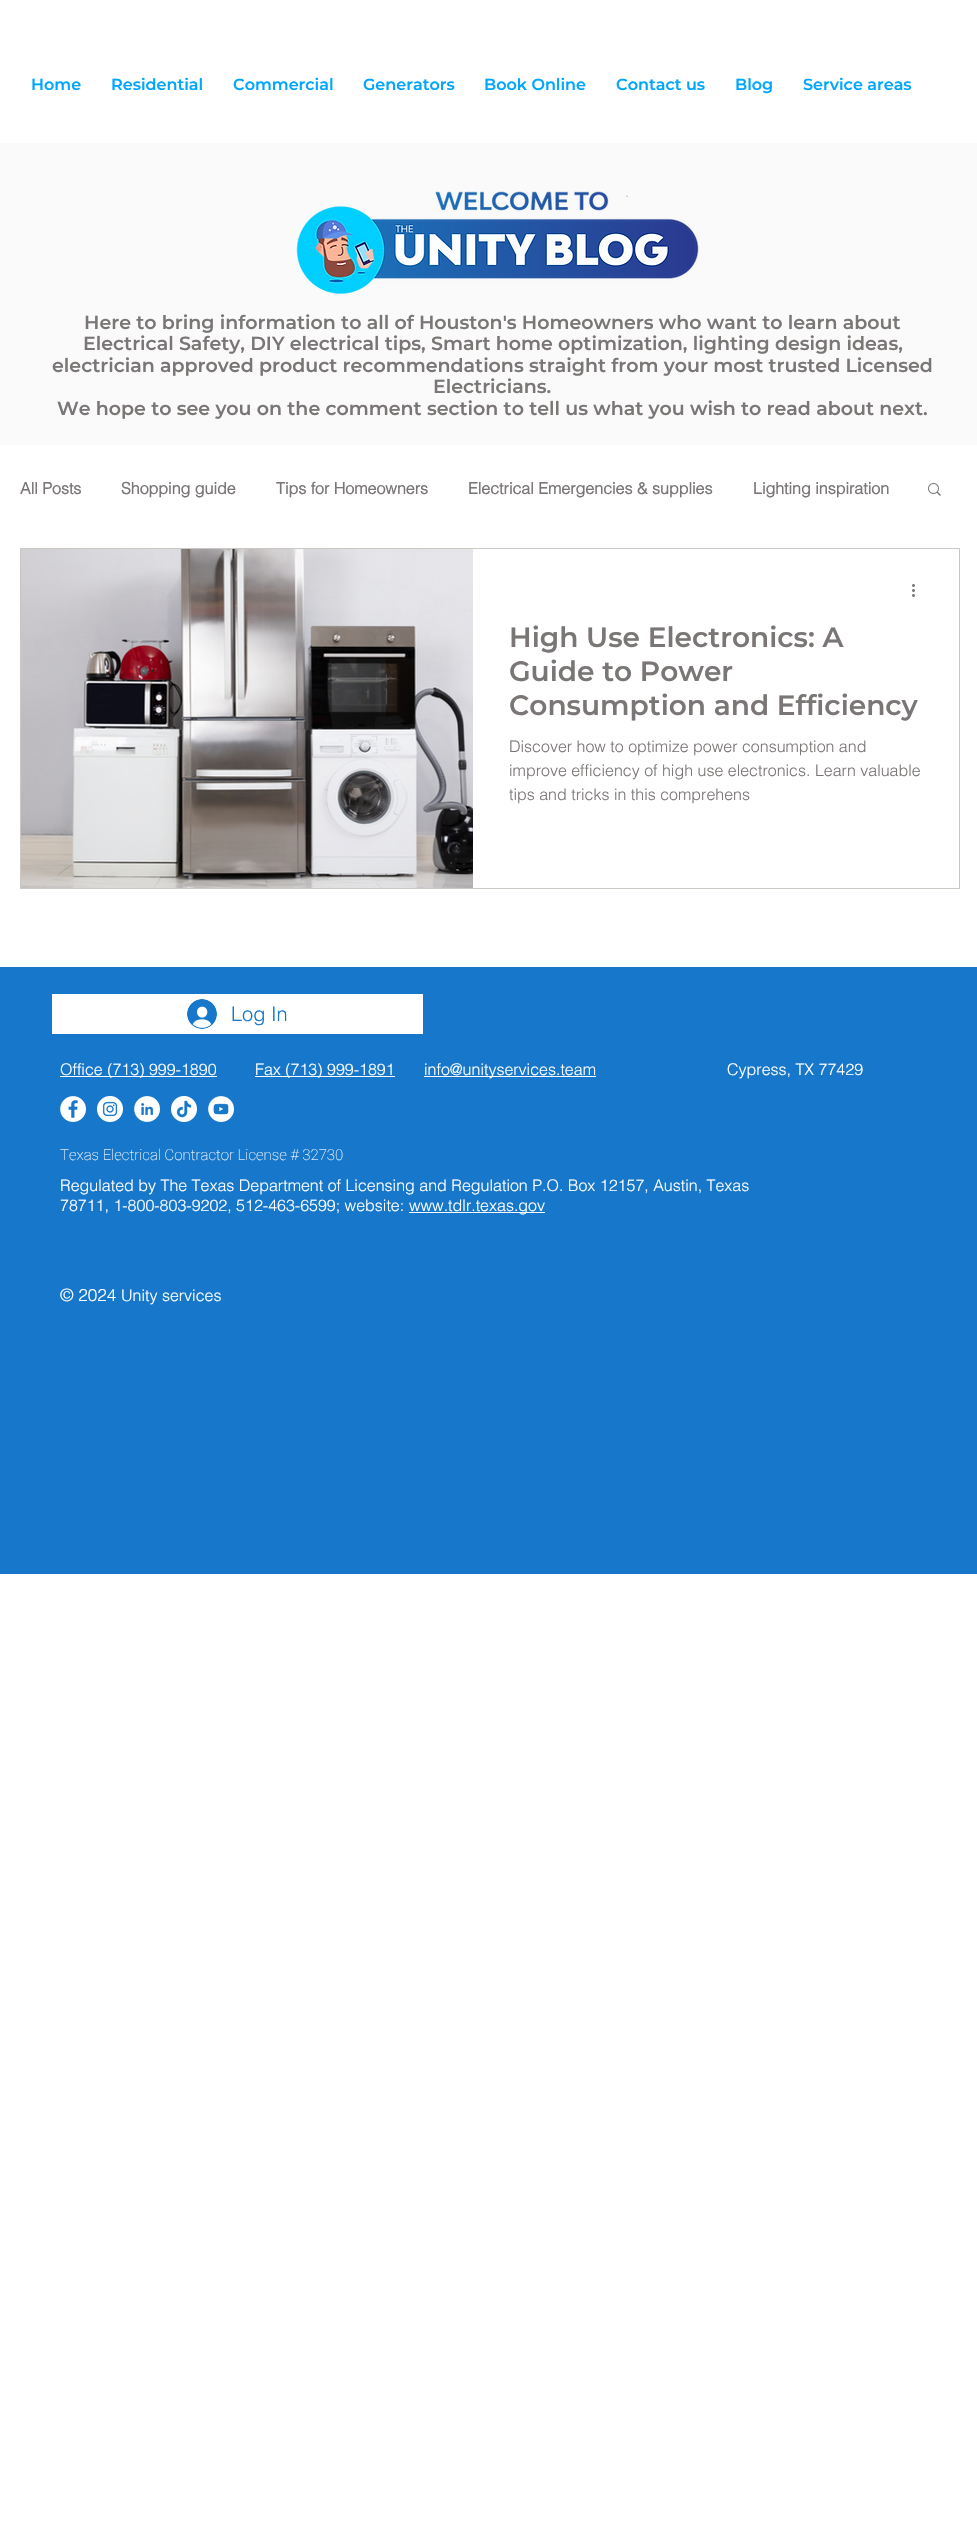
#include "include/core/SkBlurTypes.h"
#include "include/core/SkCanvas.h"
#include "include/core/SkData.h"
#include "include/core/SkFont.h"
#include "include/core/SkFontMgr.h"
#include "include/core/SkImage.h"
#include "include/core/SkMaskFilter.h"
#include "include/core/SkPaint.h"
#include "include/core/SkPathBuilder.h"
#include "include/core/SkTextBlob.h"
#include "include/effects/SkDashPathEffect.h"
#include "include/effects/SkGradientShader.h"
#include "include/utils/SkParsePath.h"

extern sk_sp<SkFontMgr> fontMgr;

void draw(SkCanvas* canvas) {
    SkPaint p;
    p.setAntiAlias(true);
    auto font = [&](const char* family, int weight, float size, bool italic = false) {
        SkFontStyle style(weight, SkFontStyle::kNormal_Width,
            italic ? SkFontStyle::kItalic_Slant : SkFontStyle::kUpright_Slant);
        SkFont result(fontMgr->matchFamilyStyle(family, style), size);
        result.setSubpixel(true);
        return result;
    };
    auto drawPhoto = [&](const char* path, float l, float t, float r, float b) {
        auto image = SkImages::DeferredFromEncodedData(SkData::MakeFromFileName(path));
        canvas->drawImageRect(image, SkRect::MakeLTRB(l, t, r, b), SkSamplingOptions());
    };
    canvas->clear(0xFFFFFFFF);
    auto font1 = font("Montserrat", 600, 16);
    p.setColor(0xFF00A6FF);
    {
        const struct { const char* s; float x, y; } items[] = {
            {"Home", 31, 90},
            {"Residential", 111, 90},
            {"Commercial", 233, 90},
            {"Generators", 363, 90},
            {"Book Online", 484, 90},
            {"Contact us", 616, 90},
            {"Blog", 735, 90},
            {"Service areas", 803, 90},
        };
        for (auto [s, x, y] : items) {
            canvas->drawString(s, x, y, font1, p);
        }
    }
    p.setColor(0xFFFAFAFA);
    canvas->drawRect(SkRect::MakeLTRB(0, 143, 977, 445), p);
    drawPhoto("media/1.png", 296, 191, 699, 296);
    auto font2 = font("Montserrat", 600, 19);
    p.setColor(0xFF7B7676);
    {
        const struct { const char* s; float x, y; } items[] = {
            {"Here to bring information to all of Houston's Homeowners who want to learn about", 84, 329},
            {"Electrical Safety, DIY electrical tips, Smart home optimization, lighting design ideas,", 83, 350},
            {"electrician approved product recommendations straight from your most trusted Licensed", 52, 372},
            {"Electricians.", 433, 393},
            {"We hope to see you on the comment section to tell us what you wish to read about next.", 57, 415},
        };
        for (auto [s, x, y] : items) {
            canvas->drawString(s, x, y, font2, p);
        }
    }
    auto font3 = font("helvetica", 700, 16);
    {
        const struct { const char* s; float x, y; } items[] = {
            {"All Posts", 20, 494},
            {"Shopping guide", 121, 494},
            {"Tips for Homeowners", 276, 494},
            {"Electrical Emergencies & supplies", 468, 494},
            {"Lighting inspiration", 753, 494},
        };
        for (auto [s, x, y] : items) {
            canvas->drawString(s, x, y, font3, p);
        }
    }
    drawPhoto("media/2.png", 928, 483, 941, 496);
    p.setStyle(SkPaint::kStroke_Style);
    p.setStrokeWidth(1);
    p.setColor(0xFFCAC8C2);
    canvas->drawRect(SkRect::MakeLTRB(20.5f, 548.5f, 959.5f, 888.5f), p);
    drawPhoto("media/3.png", 21, 549, 473, 888);
    drawPhoto("media/4.png", 912, 584, 915, 597);
    auto font4 = font("Montserrat", 600, 28);
    p.setStyle(SkPaint::kFill_Style);
    p.setColor(0xFF7B7676);
    {
        const struct { const char* s; float x, y; } items[] = {
            {"High Use Electronics: A", 509, 647},
            {"Guide to Power", 509, 681},
            {"Consumption and Efficiency", 509, 715},
        };
        for (auto [s, x, y] : items) {
            canvas->drawString(s, x, y, font4, p);
        }
    }
    auto font5 = font("helvetica", 300, 16);
    {
        const struct { const char* s; float x, y; } items[] = {
            {"Discover how to optimize power consumption and", 509, 752},
            {"improve efficiency of high use electronics. Learn valuable", 509, 776},
            {"tips and tricks in this comprehens", 509, 800},
        };
        for (auto [s, x, y] : items) {
            canvas->drawString(s, x, y, font5, p);
        }
    }
    p.setColor(0xFF1777CB);
    canvas->drawRect(SkRect::MakeLTRB(0, 967, 977, 1574), p);
    p.setColor(0xFFFFFFFF);
    canvas->drawRect(SkRect::MakeLTRB(52, 994, 423, 1034), p);
    drawPhoto("media/5.png", 187, 999, 217, 1029);
    auto font6 = font("helvetica", 300, 20);
    p.setColor(0xFF1777CB);
    canvas->drawString("Log In", 231, 1021, font6, p);
    p.setColor(0xFFFFFFFF);
    canvas->drawRect(SkRect::MakeLTRB(60, 1076, 217, 1077), p);
    canvas->drawString("Office (713) 999-1890", 60, 1075, font5, p);
    canvas->drawRect(SkRect::MakeLTRB(255, 1076, 395, 1077), p);
    canvas->drawString("Fax (713) 999-1891", 255, 1075, font5, p);
    canvas->drawRect(SkRect::MakeLTRB(424, 1076, 596, 1077), p);
    canvas->drawString("info@unityservices.team", 424, 1075, font5, p);
    canvas->drawString("Cypress, TX 77429", 727, 1075, font5, p);
    drawPhoto("media/6.png", 60, 1096, 86, 1122);
    drawPhoto("media/7.png", 97, 1096, 123, 1122);
    drawPhoto("media/8.png", 134, 1096, 160, 1122);
    drawPhoto("media/9.png", 171, 1096, 197, 1122);
    drawPhoto("media/10.png", 208, 1096, 234, 1122);
    auto font7 = font("Roboto", 100, 15);
    canvas->drawString("Texas Electrical Contractor License # 32730", 60, 1160, font7, p);
    canvas->drawString("Regulated by The Texas Department of Licensing and Regulation P.O. Box 12157, Austin, Texas", 60, 1191, font5, p);
    canvas->drawString("78711, 1-800-803-9202, 512-463-6599; website:", 60, 1211, font5, p);
    canvas->drawRect(SkRect::MakeLTRB(409, 1212, 545, 1213), p);
    canvas->drawString("www.tdlr.texas.gov", 409, 1211, font5, p);
    auto font8 = font("helvetica", 300, 17);
    canvas->drawString("© 2024", 60, 1301, font8, p);
    canvas->drawString("Unity services", 121, 1301, font5, p);
}
